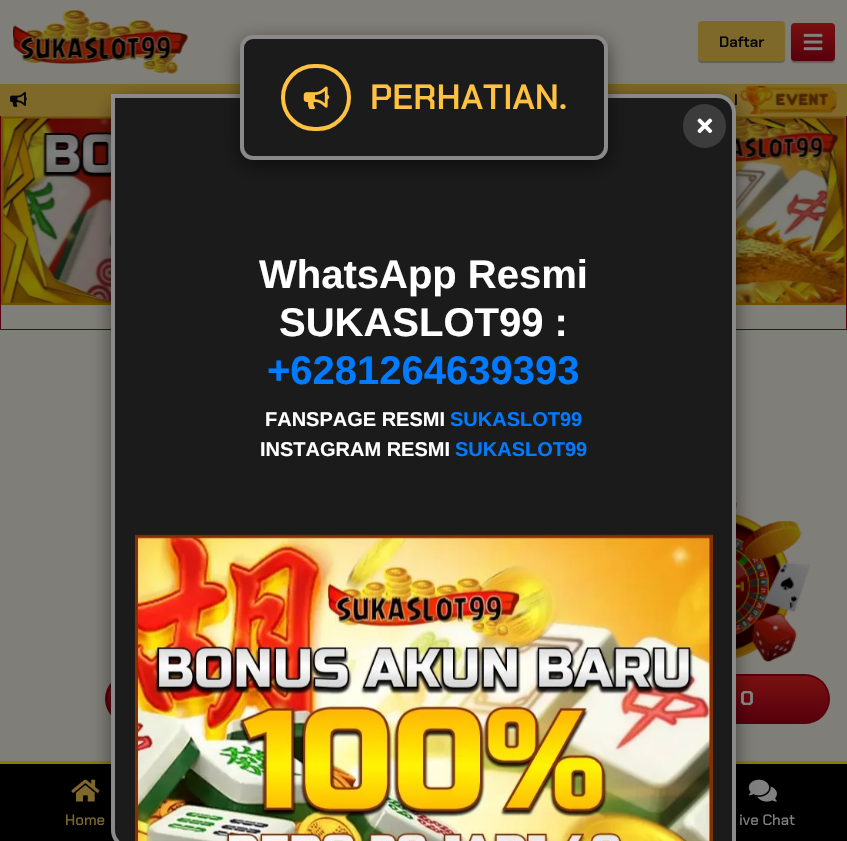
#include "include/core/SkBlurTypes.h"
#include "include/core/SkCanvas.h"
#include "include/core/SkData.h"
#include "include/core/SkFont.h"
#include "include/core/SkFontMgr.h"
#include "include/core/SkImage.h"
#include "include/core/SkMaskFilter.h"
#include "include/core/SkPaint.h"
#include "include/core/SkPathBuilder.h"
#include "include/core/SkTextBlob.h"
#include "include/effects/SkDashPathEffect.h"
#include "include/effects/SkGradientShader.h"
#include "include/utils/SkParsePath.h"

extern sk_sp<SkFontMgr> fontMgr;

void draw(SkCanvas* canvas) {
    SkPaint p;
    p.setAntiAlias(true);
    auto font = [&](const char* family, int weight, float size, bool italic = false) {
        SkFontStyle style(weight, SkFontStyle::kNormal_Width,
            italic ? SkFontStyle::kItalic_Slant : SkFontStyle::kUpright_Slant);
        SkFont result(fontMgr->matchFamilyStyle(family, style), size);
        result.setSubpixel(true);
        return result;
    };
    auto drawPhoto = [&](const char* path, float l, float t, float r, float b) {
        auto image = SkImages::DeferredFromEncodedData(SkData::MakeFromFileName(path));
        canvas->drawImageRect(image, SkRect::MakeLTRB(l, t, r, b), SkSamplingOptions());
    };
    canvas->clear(0xFF7F7E78);
    drawPhoto("media/1.png", 13, 10, 188, 74);
    p.setColor(0x40000000);
    p.setMaskFilter(SkMaskFilter::MakeBlur(kNormal_SkBlurStyle, 0.5f));
    canvas->drawRoundRect(SkRect::MakeLTRB(698, 23, 785, 63), 4, 4, p);
    p.setMaskFilter(nullptr);
    p.setColor(0xFF7F692A);
    canvas->drawRoundRect(SkRect::MakeLTRB(698, 21, 785, 61), 4, 4, p);
    auto font1 = font("Chakra Petch", 600, 15);
    p.setColor(0xFF060606);
    canvas->drawString("Daftar", 719, 47, font1, p);
    p.setColor(0x40000000);
    p.setMaskFilter(SkMaskFilter::MakeBlur(kNormal_SkBlurStyle, 0.5f));
    canvas->drawRoundRect(SkRect::MakeLTRB(791, 24, 835, 63), 4, 4, p);
    p.setMaskFilter(nullptr);
    {
        const SkColor colors[] = {0xFF791111, 0xFF57000C};
        const float stops[] = {0, 1};
        const SkPoint ends[] = {{813, 23}, {813, 61}};
        p.setShader(SkGradientShader::MakeLinear(ends, colors, stops, 2, SkTileMode::kClamp));
        p.setAlpha(255);
    }
    canvas->drawRoundRect(SkRect::MakeLTRB(791, 23, 835, 61), 4, 4, p);
    drawPhoto("media/2.png", 803, 33, 823, 51);
    p.setShader(nullptr);
    p.setColor(0xFF7F692A);
    canvas->drawRect(SkRect::MakeLTRB(0, 84, 847, 116), p);
    drawPhoto("media/3.png", 10, 91, 27, 107);
    p.setColor(0xFF060606);
    canvas->drawString("l", 734, 105, font1, p);
    drawPhoto("media/4.png", 739, 85, 837, 115);
    p.setColor(0xFF57000C);
    canvas->drawRect(SkRect::MakeLTRB(846, 116, 847, 330), p);
    canvas->drawRect(SkRect::MakeLTRB(0, 329, 847, 330), p);
    drawPhoto("media/8.png", 1, 116, 846, 305);
    canvas->drawRoundRect(SkRect::MakeLTRB(105, 674, 330, 724), 25, 25, p);
    {
        const SkColor colors[] = {0xFF791111, 0xFF57000C};
        const float stops[] = {0, 1};
        const SkPoint ends[] = {{218, 676}, {218, 721}};
        p.setShader(SkGradientShader::MakeLinear(ends, colors, stops, 2, SkTileMode::kClamp));
        p.setAlpha(255);
    }
    canvas->drawRoundRect(SkRect::MakeLTRB(108, 676, 328, 721), 22.5f, 22.5f, p);
    drawPhoto("media/9.png", 736, 496, 810, 662);
    p.setShader(nullptr);
    p.setColor(0xFF57000C);
    canvas->drawRoundRect(SkRect::MakeLTRB(605, 674, 830, 724), 25, 25, p);
    {
        const SkColor colors[] = {0xFF791111, 0xFF57000C};
        const float stops[] = {0, 1};
        const SkPoint ends[] = {{718, 676}, {718, 721}};
        p.setShader(SkGradientShader::MakeLinear(ends, colors, stops, 2, SkTileMode::kClamp));
        p.setAlpha(255);
    }
    canvas->drawRoundRect(SkRect::MakeLTRB(608, 676, 828, 721), 22.5f, 22.5f, p);
    p.setShader(nullptr);
    p.setColor(0xFF000000);
    canvas->drawRect(SkRect::MakeLTRB(0, 764, 847, 841), p);
    p.setColor(0xFF808000);
    canvas->drawRect(SkRect::MakeLTRB(0, 761, 847, 764), p);
    drawPhoto("media/10.png", 71, 779, 100, 802);
    drawPhoto("media/11.png", 748, 779, 777, 802);
    p.setColor(0x80000000);
    p.setMaskFilter(SkMaskFilter::MakeBlur(kNormal_SkBlurStyle, 9.5f));
    canvas->drawRoundRect(SkRect::MakeLTRB(111, 100, 736, 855), 19, 19, p);
    p.setMaskFilter(nullptr);
    p.setColor(0xFF1B1B1B);
    canvas->drawPath(SkPathBuilder().moveTo(113, 96).lineTo(717, 96).cubicTo(726.5f, 96, 734, 103.5f, 734, 113).lineTo(734, 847).lineTo(130, 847).cubicTo(120.5f, 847, 113, 839.5f, 113, 830).close().detach(), p);
    p.setStyle(SkPaint::kStroke_Style);
    p.setStrokeWidth(4);
    p.setColor(0xFF8A8A8A);
    canvas->drawPath(SkPathBuilder().moveTo(113, 96).lineTo(717, 96).cubicTo(726.5f, 96, 734, 103.5f, 734, 113).lineTo(734, 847).lineTo(130, 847).cubicTo(120.5f, 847, 113, 839.5f, 113, 830).close().detach(), p);
    p.setStyle(SkPaint::kFill_Style);
    p.setColor(0x80000000);
    p.setMaskFilter(SkMaskFilter::MakeBlur(kNormal_SkBlurStyle, 9.5f));
    canvas->drawRoundRect(SkRect::MakeLTRB(240, 41, 608, 166), 13, 13, p);
    p.setMaskFilter(nullptr);
    p.setColor(0xFF1B1B1B);
    canvas->drawRoundRect(SkRect::MakeLTRB(242, 37, 606, 158), 11, 11, p);
    p.setStyle(SkPaint::kStroke_Style);
    p.setColor(0xFF8A8A8A);
    canvas->drawRoundRect(SkRect::MakeLTRB(242, 37, 606, 158), 11, 11, p);
    p.setColor(0xFFFFC141);
    canvas->drawRoundRect(SkRect::MakeLTRB(283, 66, 349, 129), 31.5f, 31.5f, p);
    drawPhoto("media/5.png", 303, 86, 330, 110);
    auto font2 = font("Chakra Petch", 600, 35);
    p.setStyle(SkPaint::kFill_Style);
    canvas->drawString("PERHATIAN.", 370, 109, font2, p);
    p.setColor(0xFF3C3C3C);
    canvas->drawRoundRect(SkRect::MakeLTRB(683, 104, 726, 148), 21.5f, 21.5f, p);
    drawPhoto("media/6.png", 697, 118, 713, 134);
    auto font3 = font("Liberation Sans", 700, 40);
    p.setColor(0xFFFFFFFF);
    canvas->drawString("WhatsApp Resmi", 259, 288, font3, p);
    canvas->drawString("SUKASLOT99 :", 279, 336, font3, p);
    p.setColor(0xFF007BFF);
    canvas->drawString("+6281264639393", 267, 384, font3, p);
    auto font4 = font("Liberation Sans", 700, 20);
    p.setColor(0xFFFFFFFF);
    canvas->drawString("FANSPAGE RESMI", 265, 426, font4, p);
    p.setColor(0xFF007BFF);
    canvas->drawString("SUKASLOT99", 450, 426, font4, p);
    p.setColor(0xFFFFFFFF);
    canvas->drawString("INSTAGRAM RESMI", 260, 456, font4, p);
    p.setColor(0xFF007BFF);
    canvas->drawString("SUKASLOT99", 455, 456, font4, p);
    drawPhoto("media/7.png", 135, 534, 713, 841);
    p.setColor(0xFF57000C);
    canvas->drawRect(SkRect::MakeLTRB(0, 116, 1, 330), p);
    auto font5 = font("Chakra Petch", 700, 20);
    p.setColor(0xFF808080);
    canvas->drawString("O", 740, 705, font5, p);
    auto font6 = font("Chakra Petch", 500, 15);
    p.setColor(0xFF7F692A);
    canvas->drawString("Home", 65, 825, font6, p);
    p.setColor(0xFF808080);
    canvas->drawString("ive Chat", 739, 825, font6, p);
}
